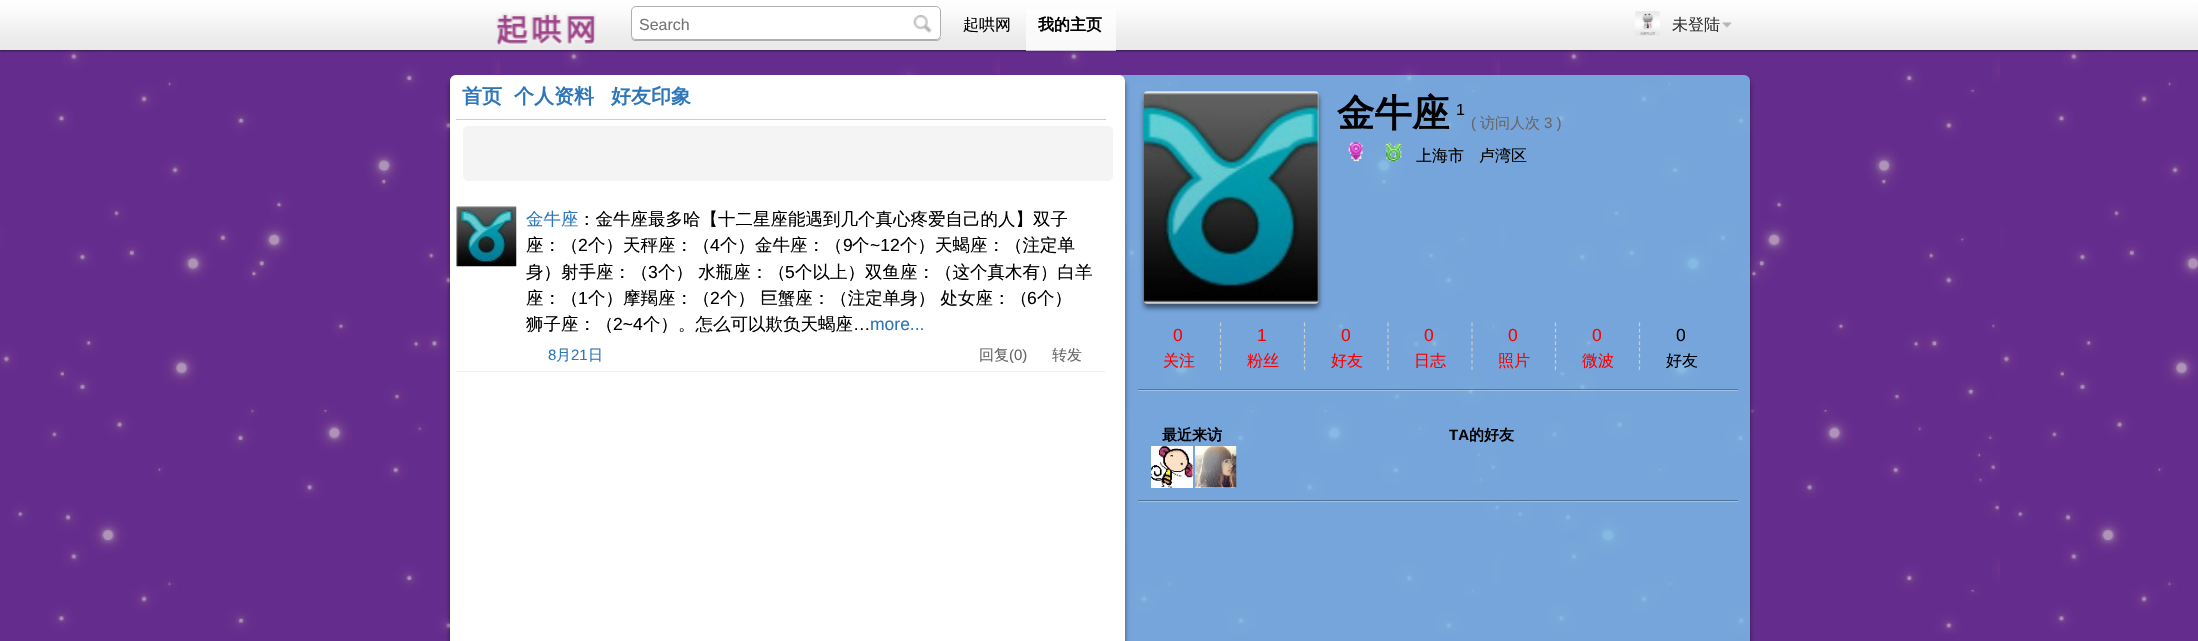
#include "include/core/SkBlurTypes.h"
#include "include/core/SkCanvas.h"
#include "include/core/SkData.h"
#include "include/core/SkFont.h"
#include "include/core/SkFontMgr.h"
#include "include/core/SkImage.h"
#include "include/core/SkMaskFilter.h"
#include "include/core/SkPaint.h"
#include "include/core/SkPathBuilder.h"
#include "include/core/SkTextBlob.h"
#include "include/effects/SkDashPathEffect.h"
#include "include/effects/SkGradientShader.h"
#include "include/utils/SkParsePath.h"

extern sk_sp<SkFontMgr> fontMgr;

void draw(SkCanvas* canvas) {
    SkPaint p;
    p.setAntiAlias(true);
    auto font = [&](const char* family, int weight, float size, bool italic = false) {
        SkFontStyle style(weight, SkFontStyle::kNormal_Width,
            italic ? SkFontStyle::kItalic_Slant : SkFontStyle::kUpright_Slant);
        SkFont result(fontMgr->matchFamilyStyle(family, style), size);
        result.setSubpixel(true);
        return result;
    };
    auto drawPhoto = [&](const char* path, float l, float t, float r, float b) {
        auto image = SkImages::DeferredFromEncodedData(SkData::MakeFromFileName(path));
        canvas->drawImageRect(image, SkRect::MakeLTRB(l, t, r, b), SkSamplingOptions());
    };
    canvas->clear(0xFF642D8D);
    drawPhoto("media/1.png", 0, 50, 2198, 634);
    p.setColor(0x80000000);
    p.setMaskFilter(SkMaskFilter::MakeBlur(kNormal_SkBlurStyle, 1));
    canvas->drawRect(SkRect::MakeLTRB(0, 1, 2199, 51), p);
    p.setMaskFilter(nullptr);
    drawPhoto("media/2.png", 0, 0, 2198, 50);
    drawPhoto("media/3.png", 496, 12, 596, 45);
    p.setColor(0xFFAEAEAE);
    canvas->drawPath(SkPathBuilder().moveTo(631, 11).lineTo(631, 36).cubicTo(631, 39, 633, 41, 636, 41).lineTo(936, 41).cubicTo(939, 41, 941, 39, 941, 37).cubicTo(940, 39, 938, 40, 936, 40).lineTo(636, 40).cubicTo(633, 40, 631, 38, 631, 35).close().detach(), p);
    p.setColor(0xFFFFFFFF);
    canvas->drawRoundRect(SkRect::MakeLTRB(631.5f, 6.5f, 940.5f, 39.5f), 4.5f, 4.5f, p);
    p.setStyle(SkPaint::kStroke_Style);
    p.setStrokeWidth(1);
    p.setColor(0xFFAEAEAE);
    canvas->drawRoundRect(SkRect::MakeLTRB(631.5f, 6.5f, 940.5f, 39.5f), 4.5f, 4.5f, p);
    auto font1 = font("Liberation Sans", 400, 16);
    p.setStyle(SkPaint::kFill_Style);
    p.setColor(0xFF757575);
    canvas->drawString("Search", 639, 30, font1, p);
    drawPhoto("media/4.png", 913, 15, 932, 33);
    auto font2 = font("WenQuanYi Zen Hei", 500, 16);
    p.setColor(0xFF000000);
    canvas->drawString("起哄网", 963, 30, font2, p);
    p.setColor(0xB3FFFFFF);
    canvas->drawRect(SkRect::MakeLTRB(1026, 9, 1116, 51), p);
    auto font3 = font("WenQuanYi Zen Hei", 700, 16);
    p.setColor(0xFF000000);
    canvas->drawString("我的主页", 1038, 30, font3, p);
    drawPhoto("media/5.png", 1635, 11, 1660, 36);
    p.setColor(0xFF333333);
    canvas->drawString("未登陆", 1672, 30, font2, p);
    drawPhoto("media/6.png", 1722, 22, 1732, 28);
    canvas->save();
    canvas->clipPath(SkPathBuilder(SkPathFillType::kEvenOdd).moveTo(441, 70).lineTo(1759, 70).lineTo(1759, 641).lineTo(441, 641).close().moveTo(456, 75).lineTo(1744, 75).cubicTo(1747.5f, 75, 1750, 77.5f, 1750, 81).lineTo(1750, 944).cubicTo(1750, 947.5f, 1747.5f, 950, 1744, 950).lineTo(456, 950).cubicTo(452.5f, 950, 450, 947.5f, 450, 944).lineTo(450, 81).cubicTo(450, 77.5f, 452.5f, 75, 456, 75).close().detach(), true);
    p.setColor(0x80000000);
    p.setMaskFilter(SkMaskFilter::MakeBlur(kNormal_SkBlurStyle, 2.5f));
    canvas->drawRoundRect(SkRect::MakeLTRB(450, 79, 1750, 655), 6, 6, p);
    p.setMaskFilter(nullptr);
    canvas->restore();
    p.setColor(0xCC7AC3EE);
    canvas->drawRoundRect(SkRect::MakeLTRB(450, 75, 1750, 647), 6, 6, p);
    canvas->save();
    canvas->clipPath(SkPathBuilder().moveTo(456, 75).lineTo(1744, 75).cubicTo(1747.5f, 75, 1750, 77.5f, 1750, 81).lineTo(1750, 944).cubicTo(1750, 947.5f, 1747.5f, 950, 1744, 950).lineTo(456, 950).cubicTo(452.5f, 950, 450, 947.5f, 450, 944).lineTo(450, 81).cubicTo(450, 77.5f, 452.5f, 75, 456, 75).close().detach(), true);
    p.setColor(0x80000000);
    p.setMaskFilter(SkMaskFilter::MakeBlur(kNormal_SkBlurStyle, 2.5f));
    canvas->drawRoundRect(SkRect::MakeLTRB(450, 79, 1125, 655), 6, 6, p);
    p.setMaskFilter(nullptr);
    canvas->restore();
    p.setColor(0xFFFFFFFF);
    canvas->drawRoundRect(SkRect::MakeLTRB(450, 75, 1125, 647), 6, 6, p);
    p.setColor(0xFFCCCCCC);
    canvas->drawRect(SkRect::MakeLTRB(456, 119, 1106, 120), p);
    auto font4 = font("WenQuanYi Zen Hei", 700, 20);
    p.setColor(0xFF2D76B9);
    {
        const struct { const char* s; float x, y; } items[] = {
            {"首页", 462, 103},
            {"个人资料", 514, 103},
            {"好友印象", 611, 103},
        };
        for (auto [s, x, y] : items) {
            canvas->drawString(s, x, y, font4, p);
        }
    }
    p.setColor(0xFFF4F4F4);
    canvas->drawRoundRect(SkRect::MakeLTRB(463, 126, 1113, 181), 5, 5, p);
    p.setColor(0xFFF2F2F2);
    canvas->drawRect(SkRect::MakeLTRB(456, 371, 1106, 372), p);
    drawPhoto("media/7.png", 456, 206, 517, 267);
    auto font5 = font("WenQuanYi Zen Hei", 500, 17.5f);
    p.setColor(0xFF2D76B9);
    canvas->drawString("金牛座", 526, 225, font5, p);
    p.setColor(0xFF000000);
    canvas->drawString("：金牛座最多哈【十二星座能遇到几个真心疼爱自己的人】双子", 578, 225, font5, p);
    canvas->drawString("座：（", 526, 251, font5, p);
    auto font6 = font("Liberation Sans", 400, 17.5f);
    canvas->drawString("2", 578, 251, font6, p);
    canvas->drawString("个）天秤座：（", 588, 251, font5, p);
    canvas->drawString("4", 710, 251, font6, p);
    canvas->drawString("个）金牛座：（", 720, 251, font5, p);
    canvas->drawString("9", 843, 251, font6, p);
    canvas->drawString("个", 852, 251, font5, p);
    canvas->drawString("~12", 870, 251, font6, p);
    canvas->drawString("个）天蝎座：（注定单", 900, 251, font5, p);
    canvas->drawString("身）射手座：（", 526, 278, font5, p);
    canvas->drawString("3", 648, 278, font6, p);
    canvas->drawString("个） 水瓶座：（", 658, 278, font5, p);
    canvas->drawString("5", 785, 278, font6, p);
    canvas->drawString("个以上）双鱼座：（这个真木有）白羊", 795, 278, font5, p);
    canvas->drawString("座：（", 526, 304, font5, p);
    canvas->drawString("1", 578, 304, font6, p);
    canvas->drawString("个）摩羯座：（", 588, 304, font5, p);
    canvas->drawString("2", 710, 304, font6, p);
    canvas->drawString("个） 巨蟹座：（注定单身） 处女座：（", 720, 304, font5, p);
    canvas->drawString("6", 1027, 304, font6, p);
    canvas->drawString("个）", 1037, 304, font5, p);
    canvas->drawString("狮子座：（", 526, 330, font5, p);
    canvas->drawString("2~4", 613, 330, font6, p);
    canvas->drawString("个）。怎么可以欺负天蝎座", 643, 330, font5, p);
    canvas->drawString("…", 853, 330, font6, p);
    p.setColor(0xFF2D76B9);
    canvas->drawString("more...", 870, 330, font6, p);
    auto font7 = font("Liberation Sans", 400, 15);
    canvas->drawString("8", 548, 360, font7, p);
    auto font8 = font("WenQuanYi Zen Hei", 500, 15);
    canvas->drawString("月", 556, 360, font8, p);
    canvas->drawString("21", 571, 360, font7, p);
    canvas->drawString("日", 588, 360, font8, p);
    p.setColor(0xFF666666);
    canvas->drawString("回复", 979, 360, font8, p);
    canvas->drawString("(0)", 1009, 360, font7, p);
    canvas->drawString("转发", 1052, 360, font8, p);
    p.setColor(0x80000000);
    p.setMaskFilter(SkMaskFilter::MakeBlur(kNormal_SkBlurStyle, 2.5f));
    canvas->drawRoundRect(SkRect::MakeLTRB(1144, 95, 1319, 308), 4, 4, p);
    p.setMaskFilter(nullptr);
    drawPhoto("media/8.png", 1143, 91, 1319, 304);
    auto font9 = font("WenQuanYi Zen Hei", 700, 37.5f);
    p.setColor(0xFF000000);
    canvas->drawString("金牛座", 1337, 126, font9, p);
    canvas->drawString("1", 1456, 115, font1, p);
    p.setColor(0xFF666666);
    canvas->drawString("(", 1471, 128, font7, p);
    canvas->drawString("访问人次", 1480, 128, font8, p);
    canvas->drawString("3 )", 1544, 128, font7, p);
    drawPhoto("media/9.png", 1348, 142, 1363, 162);
    drawPhoto("media/10.png", 1384, 142, 1403, 162);
    p.setColor(0xFF000000);
    canvas->drawString("上海市", 1416, 161, font2, p);
    canvas->drawString("卢湾区", 1479, 161, font2, p);
    p.setStyle(SkPaint::kStroke_Style);
    p.setStrokeWidth(1.2f);
    p.setColor(0xFFCCCCCC);
    p.setPathEffect(SkDashPathEffect::Make({{3.75f, 2.5f}}, 0));
    canvas->drawPath(SkPathBuilder().moveTo(1220.5f, 322.5f).lineTo(1220.5f, 370).detach(), p);
    p.setPathEffect(nullptr);
    p.setStyle(SkPaint::kFill_Style);
    p.setColor(0xFFFF0000);
    canvas->drawString("0", 1173, 341, font6, p);
    canvas->drawString("关注", 1163, 366, font2, p);
    p.setStyle(SkPaint::kStroke_Style);
    p.setColor(0xFFCCCCCC);
    p.setPathEffect(SkDashPathEffect::Make({{3.75f, 2.5f}}, 0));
    canvas->drawPath(SkPathBuilder().moveTo(1304.5f, 322.5f).lineTo(1304.5f, 370).detach(), p);
    p.setPathEffect(nullptr);
    p.setStyle(SkPaint::kFill_Style);
    p.setColor(0xFFFF0000);
    canvas->drawString("1", 1257, 341, font6, p);
    canvas->drawString("粉丝", 1247, 366, font2, p);
    p.setStyle(SkPaint::kStroke_Style);
    p.setColor(0xFFCCCCCC);
    p.setPathEffect(SkDashPathEffect::Make({{3.75f, 2.5f}}, 0));
    canvas->drawPath(SkPathBuilder().moveTo(1388, 322.5f).lineTo(1388, 370).detach(), p);
    p.setPathEffect(nullptr);
    p.setStyle(SkPaint::kFill_Style);
    p.setColor(0xFFFF0000);
    canvas->drawString("0", 1341, 341, font6, p);
    canvas->drawString("好友", 1331, 366, font2, p);
    p.setStyle(SkPaint::kStroke_Style);
    p.setColor(0xFFCCCCCC);
    p.setPathEffect(SkDashPathEffect::Make({{3.75f, 2.5f}}, 0));
    canvas->drawPath(SkPathBuilder().moveTo(1472, 322.5f).lineTo(1472, 370).detach(), p);
    p.setPathEffect(nullptr);
    p.setStyle(SkPaint::kFill_Style);
    p.setColor(0xFFFF0000);
    canvas->drawString("0", 1424, 341, font6, p);
    canvas->drawString("日志", 1414, 366, font2, p);
    p.setStyle(SkPaint::kStroke_Style);
    p.setColor(0xFFCCCCCC);
    p.setPathEffect(SkDashPathEffect::Make({{3.75f, 2.5f}}, 0));
    canvas->drawPath(SkPathBuilder().moveTo(1555.5f, 322.5f).lineTo(1555.5f, 370).detach(), p);
    p.setPathEffect(nullptr);
    p.setStyle(SkPaint::kFill_Style);
    p.setColor(0xFFFF0000);
    canvas->drawString("0", 1508, 341, font6, p);
    canvas->drawString("照片", 1498, 366, font2, p);
    p.setStyle(SkPaint::kStroke_Style);
    p.setColor(0xFFCCCCCC);
    p.setPathEffect(SkDashPathEffect::Make({{3.75f, 2.5f}}, 0));
    canvas->drawPath(SkPathBuilder().moveTo(1639.5f, 322.5f).lineTo(1639.5f, 370).detach(), p);
    p.setPathEffect(nullptr);
    p.setStyle(SkPaint::kFill_Style);
    p.setColor(0xFFFF0000);
    canvas->drawString("0", 1592, 341, font6, p);
    canvas->drawString("微波", 1582, 366, font2, p);
    p.setColor(0xFF000000);
    canvas->drawString("0", 1676, 341, font6, p);
    canvas->drawString("好友", 1666, 366, font2, p);
    p.setColor(0x4D000000);
    canvas->drawRect(SkRect::MakeLTRB(1138, 389, 1738, 390), p);
    p.setColor(0x4DFFFFFF);
    canvas->drawRect(SkRect::MakeLTRB(1138, 390, 1738, 391), p);
    auto font10 = font("WenQuanYi Zen Hei", 700, 15);
    p.setColor(0xFF000000);
    canvas->drawString("最近来访", 1162, 440, font10, p);
    p.setColor(0xFFFFFFFF);
    canvas->drawRect(SkRect::MakeLTRB(1151, 446, 1193, 488), p);
    drawPhoto("media/11.png", 1151, 446, 1193, 488);
    canvas->drawRect(SkRect::MakeLTRB(1195, 446, 1236, 488), p);
    drawPhoto("media/12.png", 1195, 446, 1237, 488);
    auto font11 = font("Liberation Sans", 700, 15);
    p.setColor(0xFF000000);
    canvas->drawString("TA", 1449, 440, font11, p);
    canvas->drawString("的好友", 1469, 440, font10, p);
    p.setColor(0xFF527499);
    canvas->drawRect(SkRect::MakeLTRB(1138, 500, 1738, 501), p);
    p.setColor(0xFF9FC0E6);
    canvas->drawRect(SkRect::MakeLTRB(1138, 501, 1738, 502), p);
}
